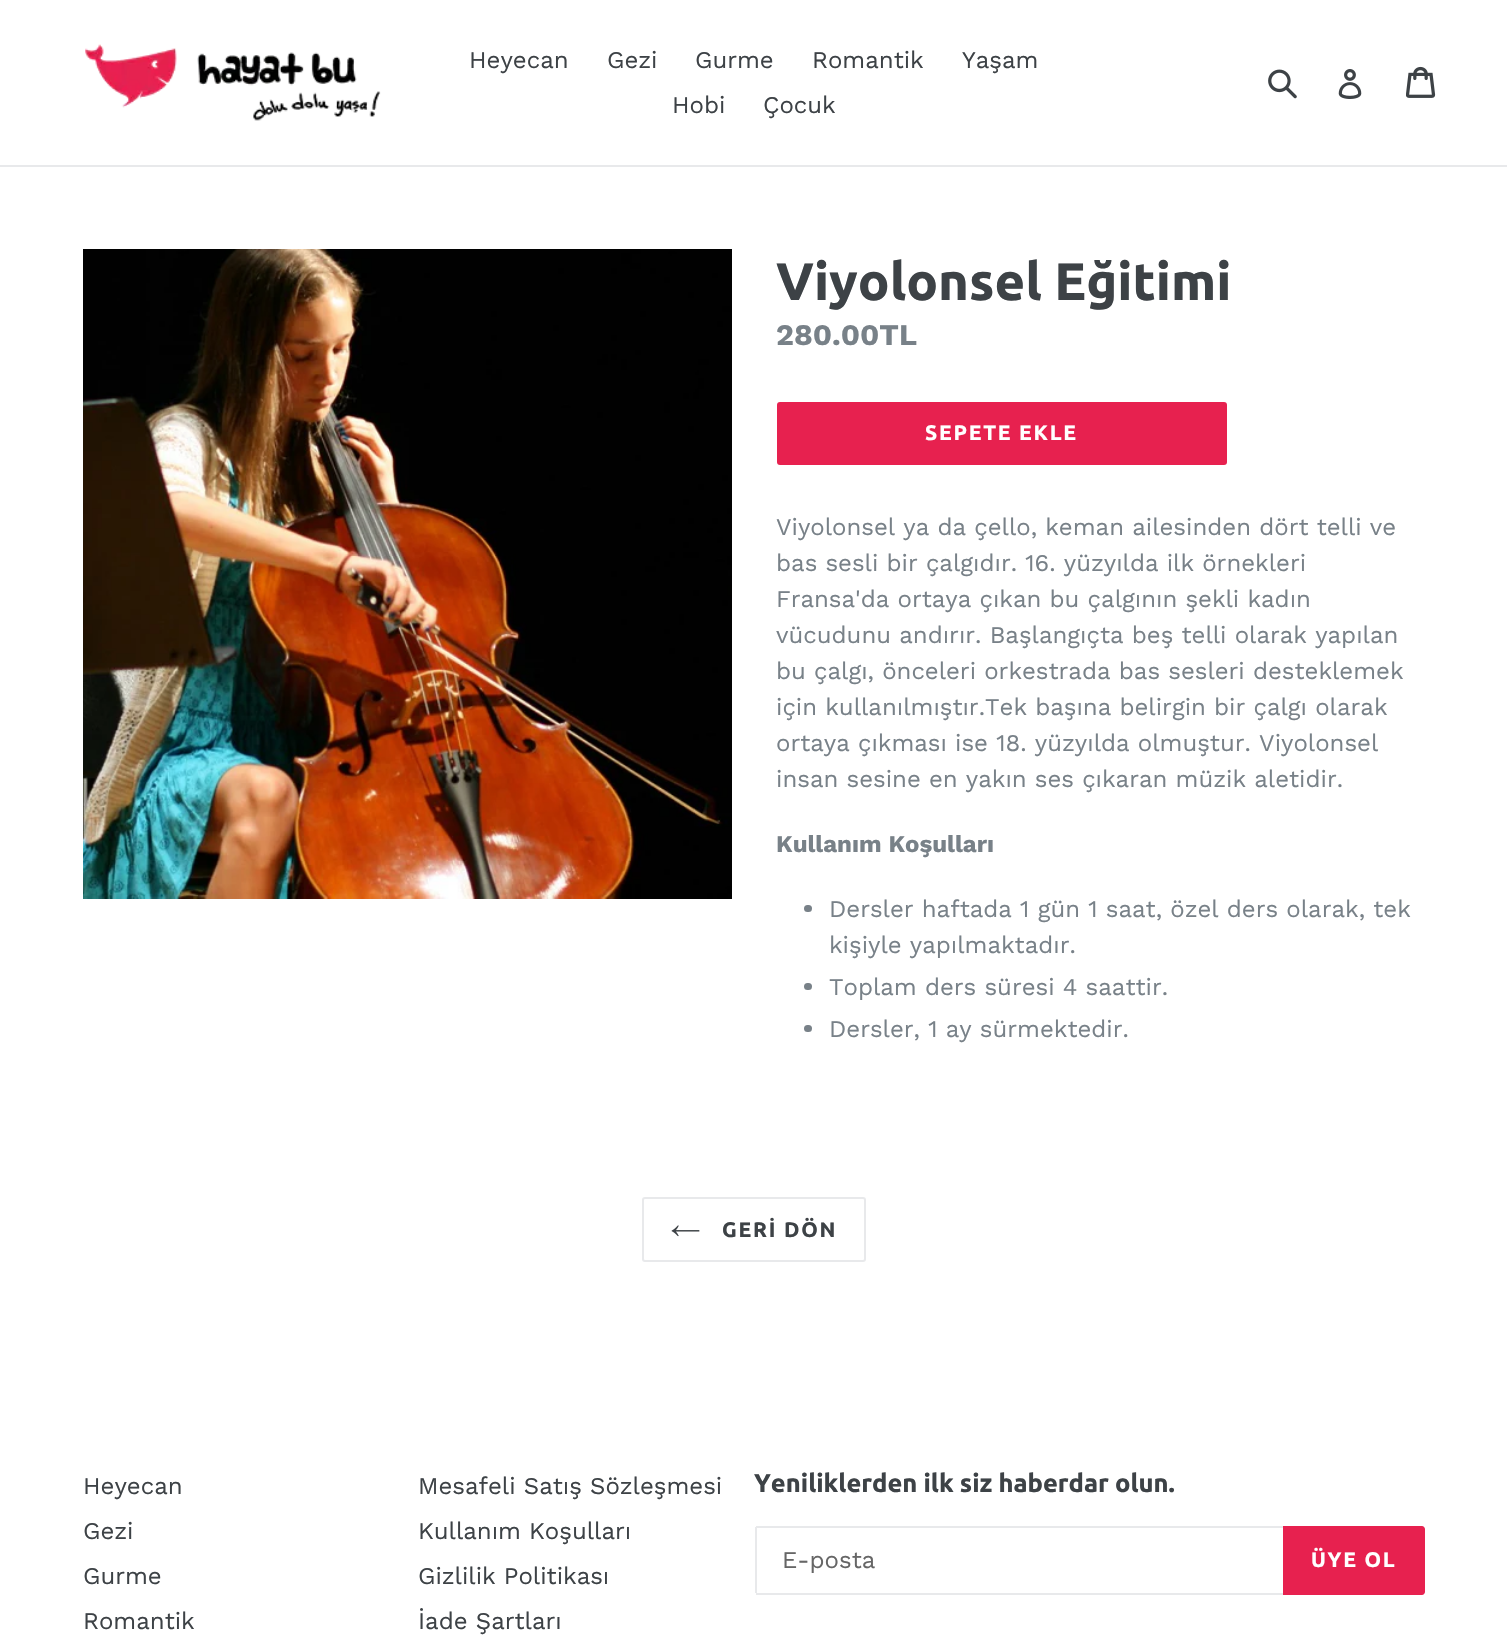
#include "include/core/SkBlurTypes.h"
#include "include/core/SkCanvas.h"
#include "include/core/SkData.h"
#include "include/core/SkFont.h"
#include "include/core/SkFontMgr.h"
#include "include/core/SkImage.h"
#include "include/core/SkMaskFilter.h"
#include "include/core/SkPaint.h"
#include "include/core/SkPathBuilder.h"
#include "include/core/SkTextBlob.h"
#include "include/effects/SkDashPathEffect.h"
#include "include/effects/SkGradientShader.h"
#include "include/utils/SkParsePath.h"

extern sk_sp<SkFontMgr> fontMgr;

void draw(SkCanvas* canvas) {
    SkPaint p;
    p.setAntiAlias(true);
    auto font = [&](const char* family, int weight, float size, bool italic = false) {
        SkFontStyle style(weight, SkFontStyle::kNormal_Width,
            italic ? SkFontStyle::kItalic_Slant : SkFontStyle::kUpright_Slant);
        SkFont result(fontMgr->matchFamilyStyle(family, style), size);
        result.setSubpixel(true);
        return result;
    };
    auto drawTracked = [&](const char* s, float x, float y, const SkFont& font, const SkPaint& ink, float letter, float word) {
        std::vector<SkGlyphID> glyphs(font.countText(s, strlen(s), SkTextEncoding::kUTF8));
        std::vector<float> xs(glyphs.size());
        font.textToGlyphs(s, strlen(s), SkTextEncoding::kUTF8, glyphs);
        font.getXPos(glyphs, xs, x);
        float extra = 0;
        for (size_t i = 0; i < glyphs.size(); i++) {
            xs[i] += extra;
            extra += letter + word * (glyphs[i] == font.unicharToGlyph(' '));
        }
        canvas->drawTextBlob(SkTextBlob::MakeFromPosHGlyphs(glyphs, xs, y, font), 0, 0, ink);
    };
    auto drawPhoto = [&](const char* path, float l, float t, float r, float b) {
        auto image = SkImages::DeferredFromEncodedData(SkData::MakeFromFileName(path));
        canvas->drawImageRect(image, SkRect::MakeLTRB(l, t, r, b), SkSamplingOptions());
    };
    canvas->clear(0xFFFFFFFF);
    p.setColor(0xFFE8E9EB);
    canvas->drawRect(SkRect::MakeLTRB(0, 165, 1507, 167), p);
    drawPhoto("media/1.png", 85, 44, 381, 121);
    auto font1 = font("Work Sans", 400, 24);
    p.setColor(0xFF3D4246);
    {
        const struct { const char* s; float x, y; } items[] = {
            {"Heyecan", 469, 68},
            {"Gezi", 607, 68},
            {"Gurme", 695, 68},
            {"Romantik", 812, 68},
            {"Yaşam", 962, 68},
            {"Hobi", 672, 113},
            {"Çocuk", 763, 113},
        };
        for (auto [s, x, y] : items) {
            canvas->drawString(s, x, y, font1, p);
        }
    }
    drawPhoto("media/2.png", 1268, 69, 1297, 99);
    drawPhoto("media/3.png", 1338, 69, 1362, 99);
    drawPhoto("media/4.png", 1406, 66, 1436, 98);
    drawPhoto("media/5.png", 83, 249, 732, 899);
    auto font2 = font("Ubuntu", 700, 52.5f);
    canvas->drawString("Viyolonsel Eğitimi", 776, 300, font2, p);
    auto font3 = font("Work Sans", 700, 30);
    p.setColor(0xFF788188);
    canvas->drawString("280.00TL", 776, 345, font3, p);
    p.setColor(0xFFE7214F);
    canvas->drawRoundRect(SkRect::MakeLTRB(777, 402, 1227, 465), 3, 3, p);
    auto font4 = font("Ubuntu", 700, 21);
    p.setColor(0xFFFFFFFF);
    drawTracked("SEPETE EKLE", 925, 440, font4, p, 1.75f, 0);
    p.setColor(0xFF788188);
    {
        const struct { const char* s; float x, y; } items[] = {
            {"Viyolonsel ya da çello, keman ailesinden dört telli ve", 776, 535},
            {"bas sesli bir çalgıdır. 16. yüzyılda ilk örnekleri", 776, 571},
            {"Fransa'da ortaya çıkan bu çalgının şekli kadın", 776, 607},
            {"vücudunu andırır. Başlangıçta beş telli olarak yapılan", 776, 643},
            {"bu çalgı, önceleri orkestrada bas sesleri desteklemek", 776, 679},
            {"için kullanılmıştır.Tek başına belirgin bir çalgı olarak", 776, 715},
            {"ortaya çıkması ise 18. yüzyılda olmuştur. Viyolonsel", 776, 751},
            {"insan sesine en yakın ses çıkaran müzik aletidir.", 776, 787},
        };
        for (auto [s, x, y] : items) {
            canvas->drawString(s, x, y, font1, p);
        }
    }
    auto font5 = font("Work Sans", 700, 24);
    canvas->drawString("Kullanım Koşulları", 776, 852, font5, p);
    canvas->drawRoundRect(SkRect::MakeLTRB(804, 905, 812, 912), 3.5f, 3.5f, p);
    canvas->drawString("Dersler haftada 1 gün 1 saat, özel ders olarak, tek", 829, 917, font1, p);
    canvas->drawString("kişiyle yapılmaktadır.", 829, 953, font1, p);
    canvas->drawRoundRect(SkRect::MakeLTRB(804, 983, 812, 990), 3.5f, 3.5f, p);
    canvas->drawString("Toplam ders süresi 4 saattir.", 829, 995, font1, p);
    canvas->drawRoundRect(SkRect::MakeLTRB(804, 1025, 812, 1032), 3.5f, 3.5f, p);
    canvas->drawString("Dersler, 1 ay sürmektedir.", 829, 1037, font1, p);
    p.setStyle(SkPaint::kStroke_Style);
    p.setStrokeWidth(2);
    p.setColor(0xFFE8E9EB);
    canvas->drawRoundRect(SkRect::MakeLTRB(643, 1198, 865, 1261), 2, 2, p);
    drawPhoto("media/6.png", 671, 1225, 700, 1237);
    p.setStyle(SkPaint::kFill_Style);
    p.setColor(0xFF3D4246);
    drawTracked("GERİ DÖN", 722, 1237, font4, p, 1.75f, 0);
    {
        const struct { const char* s; float x, y; } items[] = {
            {"Heyecan", 83, 1494},
            {"Gezi", 83, 1539},
            {"Gurme", 83, 1584},
            {"Romantik", 83, 1629},
            {"Mesafeli Satış Sözleşmesi", 418, 1494},
            {"Kullanım Koşulları", 418, 1539},
            {"Gizlilik Politikası", 418, 1584},
            {"İade Şartları", 418, 1629},
        };
        for (auto [s, x, y] : items) {
            canvas->drawString(s, x, y, font1, p);
        }
    }
    auto font6 = font("Ubuntu", 700, 25.5f);
    canvas->drawString("Yeniliklerden ilk siz haberdar olun.", 754, 1492, font6, p);
    {
        const struct { float l, t, r, b; SkColor color; } items[] = {
            {756, 1526, 1283, 1528, 0xFFE8E9EB},
            {756, 1593, 1283, 1595, 0xFFE8E9EB},
            {755, 1527, 757, 1593, 0xFFE8E9EB},
        };
        for (auto [l, t, r, b, color] : items) {
            p.setColor(color);
            canvas->drawRect(SkRect::MakeLTRB(l, t, r, b), p);
        }
    }
    p.setColor(0xFF666666);
    canvas->drawString("E-posta", 782, 1568, font1, p);
    p.setColor(0xFFE7214F);
    canvas->drawPath(SkPathBuilder().moveTo(1283, 1526).lineTo(1422, 1526).cubicTo(1423.5f, 1526, 1425, 1527.5f, 1425, 1529).lineTo(1425, 1592).cubicTo(1425, 1593.5f, 1423.5f, 1595, 1422, 1595).lineTo(1283, 1595).close().detach(), p);
    p.setColor(0xFFFFFFFF);
    drawTracked("ÜYE OL", 1311, 1567, font4, p, 1.75f, 0);
}
